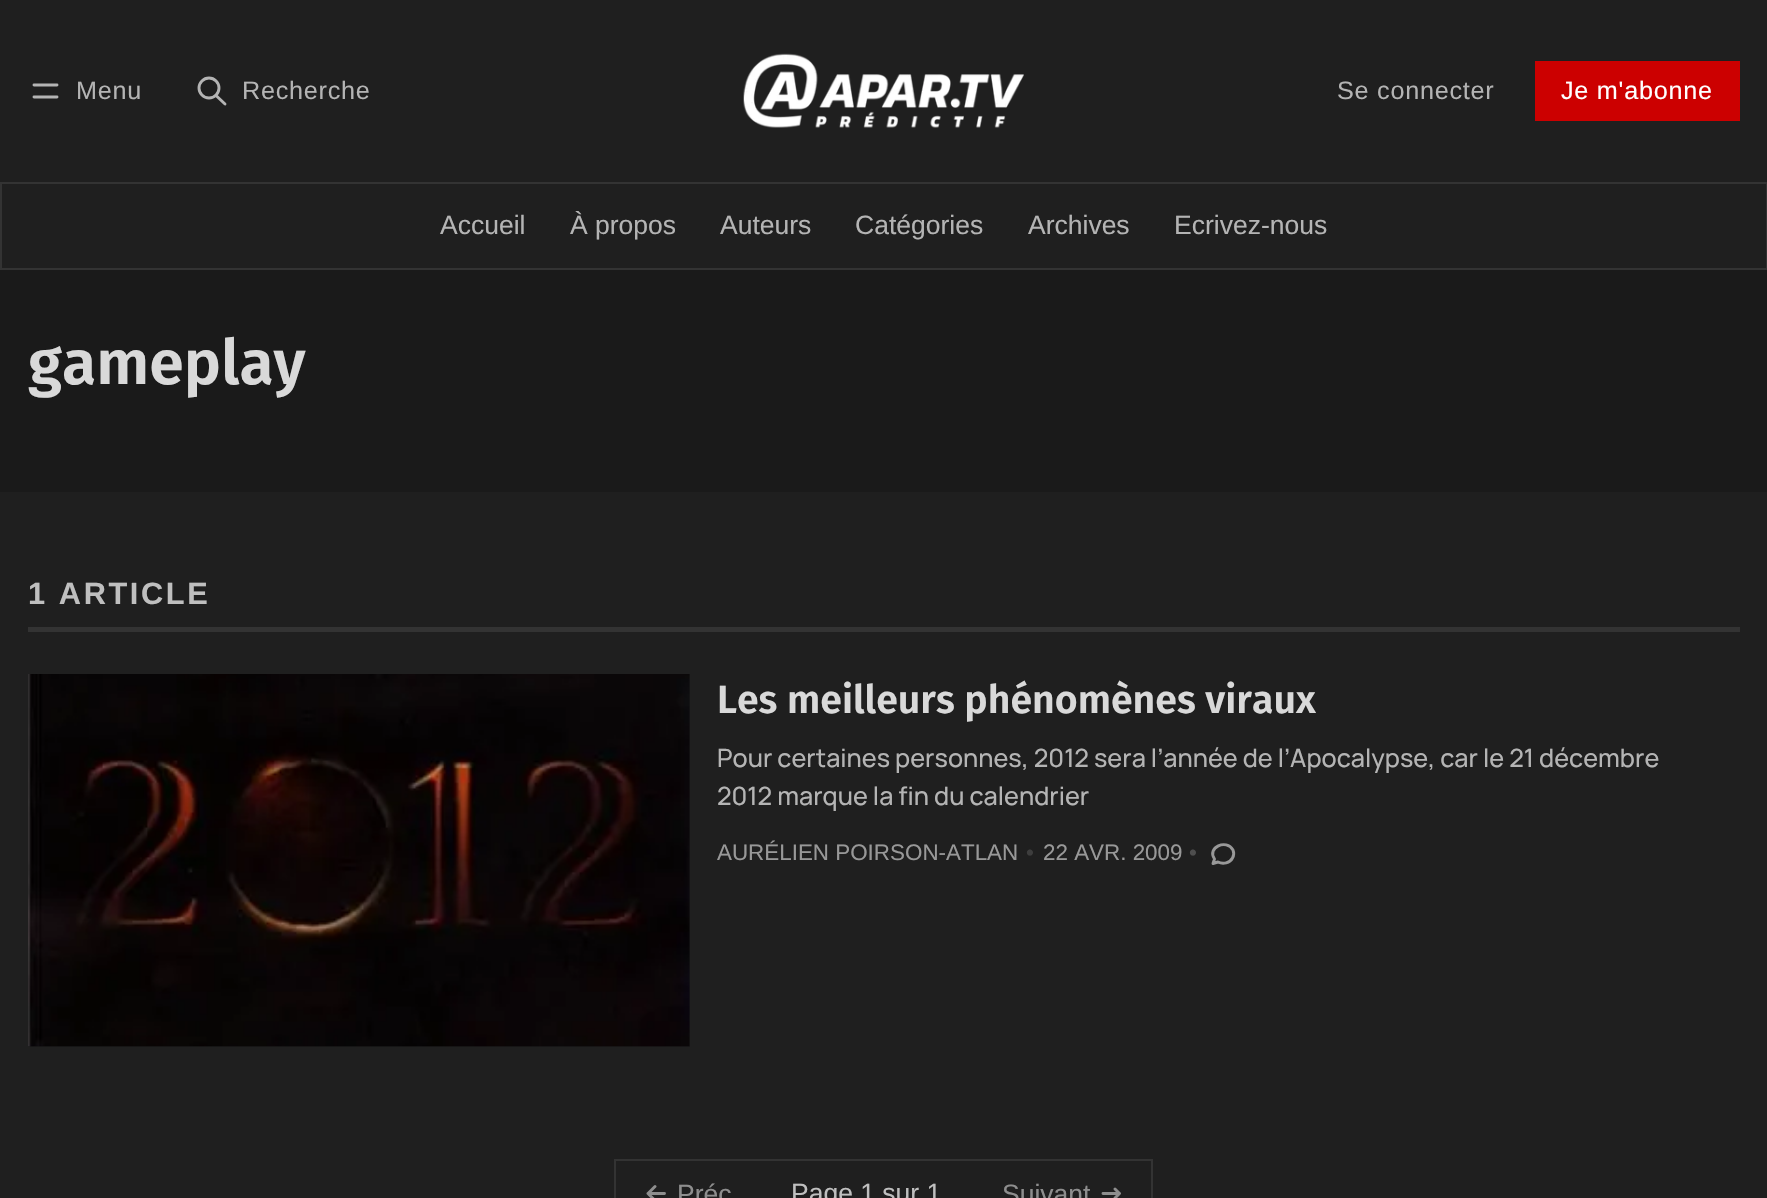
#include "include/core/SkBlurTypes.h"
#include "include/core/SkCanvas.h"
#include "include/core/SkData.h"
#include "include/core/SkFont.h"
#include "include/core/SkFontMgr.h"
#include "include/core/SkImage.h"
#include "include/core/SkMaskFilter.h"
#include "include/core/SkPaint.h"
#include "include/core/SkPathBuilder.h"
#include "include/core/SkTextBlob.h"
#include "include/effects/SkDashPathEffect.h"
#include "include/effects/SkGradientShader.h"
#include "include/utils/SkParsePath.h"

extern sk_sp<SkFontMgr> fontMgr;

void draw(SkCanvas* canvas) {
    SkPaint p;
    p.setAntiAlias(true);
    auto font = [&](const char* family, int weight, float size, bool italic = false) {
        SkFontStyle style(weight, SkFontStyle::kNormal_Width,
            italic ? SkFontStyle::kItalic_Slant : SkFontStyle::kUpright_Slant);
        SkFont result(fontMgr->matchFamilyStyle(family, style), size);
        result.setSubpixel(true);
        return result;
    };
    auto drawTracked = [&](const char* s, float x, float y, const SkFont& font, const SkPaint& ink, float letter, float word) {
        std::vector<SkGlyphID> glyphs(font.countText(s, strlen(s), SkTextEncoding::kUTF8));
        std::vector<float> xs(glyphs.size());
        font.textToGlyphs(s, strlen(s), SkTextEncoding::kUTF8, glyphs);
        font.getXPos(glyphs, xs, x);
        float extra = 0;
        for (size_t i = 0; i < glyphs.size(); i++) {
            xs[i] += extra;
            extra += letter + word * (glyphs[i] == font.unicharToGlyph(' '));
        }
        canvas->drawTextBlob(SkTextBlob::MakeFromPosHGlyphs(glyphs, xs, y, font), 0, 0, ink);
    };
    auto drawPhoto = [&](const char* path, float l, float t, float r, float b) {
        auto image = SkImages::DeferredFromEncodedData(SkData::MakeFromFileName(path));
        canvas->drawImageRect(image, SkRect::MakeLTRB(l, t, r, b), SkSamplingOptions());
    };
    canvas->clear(0xFF1F1F1F);
    p.setStyle(SkPaint::kStroke_Style);
    p.setStrokeWidth(2.9f);
    p.setStrokeCap(SkPaint::kRound_Cap);
    p.setStrokeJoin(SkPaint::kRound_Join);
    p.setColor(0xFFB4B4B4);
    canvas->drawPath(SkPathBuilder().moveTo(34, 85).lineTo(57, 85).moveTo(34, 97).lineTo(57, 97).detach(), p);
    auto font1 = font("Liberation Sans", 400, 25.2f);
    p.setStyle(SkPaint::kFill_Style);
    drawTracked("Menu", 76, 99, font1, p, 0.75f, 0);
    p.setStyle(SkPaint::kStroke_Style);
    p.setStrokeCap(SkPaint::kButt_Cap);
    p.setStrokeJoin(SkPaint::kMiter_Join);
    canvas->drawCircle(209, 88, 10, p);
    p.setStrokeCap(SkPaint::kRound_Cap);
    p.setStrokeJoin(SkPaint::kRound_Join);
    canvas->drawPath(SkPathBuilder().moveTo(225, 104).lineTo(216, 95.5f).detach(), p);
    p.setStyle(SkPaint::kFill_Style);
    drawTracked("Recherche", 242, 99, font1, p, 0.75f, 0);
    drawPhoto("media/1.png", 743, 53, 1024, 128);
    drawTracked("Se connecter", 1337, 99, font1, p, 0.75f, 0);
    p.setColor(0xFFCC0000);
    canvas->drawRect(SkRect::MakeLTRB(1535, 61, 1740, 121), p);
    p.setColor(0xFFFFFFFF);
    drawTracked("Je m'abonne", 1561, 99, font1, p, 0.75f, 0);
    p.setStyle(SkPaint::kStroke_Style);
    p.setStrokeWidth(2);
    p.setStrokeCap(SkPaint::kButt_Cap);
    p.setStrokeJoin(SkPaint::kMiter_Join);
    p.setColor(0xFF333333);
    canvas->drawRect(SkRect::MakeLTRB(1, 183, 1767, 269), p);
    auto font2 = font("Liberation Sans", 400, 26.5f);
    p.setStyle(SkPaint::kFill_Style);
    p.setColor(0xFFB4B4B4);
    {
        const struct { const char* s; float x, y; } items[] = {
            {"Accueil", 440, 234},
            {"À propos", 570, 234},
            {"Auteurs", 720, 234},
            {"Catégories", 855, 234},
            {"Archives", 1028, 234},
            {"Ecrivez-nous", 1174, 234},
        };
        for (auto [s, x, y] : items) {
            canvas->drawString(s, x, y, font2, p);
        }
    }
    p.setColor(0xFF1A1A1A);
    canvas->drawRect(SkRect::MakeLTRB(0, 270, 1767, 492), p);
    auto font3 = font("Fira Sans", 600, 62.5f);
    p.setColor(0xFFD9D9D9);
    canvas->drawString("gameplay", 28, 384, font3, p);
    p.setColor(0xFF333333);
    canvas->drawRect(SkRect::MakeLTRB(28, 627, 1740, 632), p);
    auto font4 = font("Liberation Sans", 700, 30.75f);
    p.setColor(0xFFBFBFBF);
    drawTracked("1 ARTICLE", 28, 604, font4, p, 2.6f, 0);
    p.setColor(0xFF1A1A1A);
    canvas->drawRect(SkRect::MakeLTRB(28, 674, 690, 1047), p);
    drawPhoto("media/2.png", 28, 674, 690, 1047);
    auto font5 = font("Fira Sans", 600, 39.25f);
    p.setColor(0xFFD9D9D9);
    canvas->drawString("Les meilleurs phénomènes viraux", 717, 713, font5, p);
    auto font6 = font("Manrope", 200, 25.2f);
    p.setColor(0xFFB4B4B4);
    canvas->drawString("Pour certaines personnes, 2012 sera l’année de l’Apocalypse, car le 21 décembre", 717, 767, font6, p);
    canvas->drawString("2012 marque la fin du calendrier", 717, 805, font6, p);
    auto font7 = font("Liberation Sans", 400, 22.4f);
    p.setColor(0xFF989898);
    canvas->drawString("AURÉLIEN POIRSON-ATLAN", 717, 860, font7, p);
    p.setColor(0xFF3D3D3D);
    canvas->drawString("•", 1026, 860, font7, p);
    p.setColor(0xFF989898);
    canvas->drawString("22 AVR. 2009", 1043, 860, font7, p);
    p.setColor(0xFF4E4E4E);
    canvas->drawString("•", 1189, 860, font7, p);
    p.setStyle(SkPaint::kStroke_Style);
    p.setStrokeWidth(2.9f);
    p.setStrokeCap(SkPaint::kRound_Cap);
    p.setStrokeJoin(SkPaint::kRound_Join);
    p.setColor(0xFF989898);
    canvas->drawPath(SkPathBuilder().moveTo(1213, 863.5f).lineTo(1214.5f, 859).cubicTo(1206.5f, 847.5f, 1226.5f, 838.5f, 1233, 850).cubicTo(1234, 852.5f, 1234, 855.5f, 1232.5f, 858).cubicTo(1230, 863, 1223, 864.5f, 1218, 862).lineTo(1213, 863.5f).detach(), p);
    p.setStrokeWidth(2);
    p.setStrokeCap(SkPaint::kButt_Cap);
    p.setStrokeJoin(SkPaint::kMiter_Join);
    p.setColor(0xFF333333);
    canvas->drawRect(SkRect::MakeLTRB(615, 1160, 1152, 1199), p);
    p.setStrokeWidth(2.9f);
    p.setStrokeCap(SkPaint::kRound_Cap);
    p.setStrokeJoin(SkPaint::kRound_Join);
    p.setColor(0xFF8E8E8E);
    canvas->drawPath(SkPathBuilder().moveTo(648, 1193.5f).lineTo(664.5f, 1193.5f).moveTo(648, 1193.5f).lineTo(655, 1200.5f).moveTo(648, 1193.5f).lineTo(655, 1186.5f).detach(), p);
    p.setStyle(SkPaint::kFill_Style);
    canvas->drawString("Préc", 677, 1203, font2, p);
    p.setColor(0xFFBFBFBF);
    canvas->drawString("Page 1 sur 1", 791, 1202, font2, p);
    p.setColor(0xFF8E8E8E);
    canvas->drawString("Suivant", 1002, 1203, font2, p);
    p.setStyle(SkPaint::kStroke_Style);
    canvas->drawPath(SkPathBuilder().moveTo(1103, 1193.5f).lineTo(1119.5f, 1193.5f).moveTo(1115, 1198).lineTo(1119.5f, 1193.5f).moveTo(1115, 1189).lineTo(1119.5f, 1193.5f).detach(), p);
}
